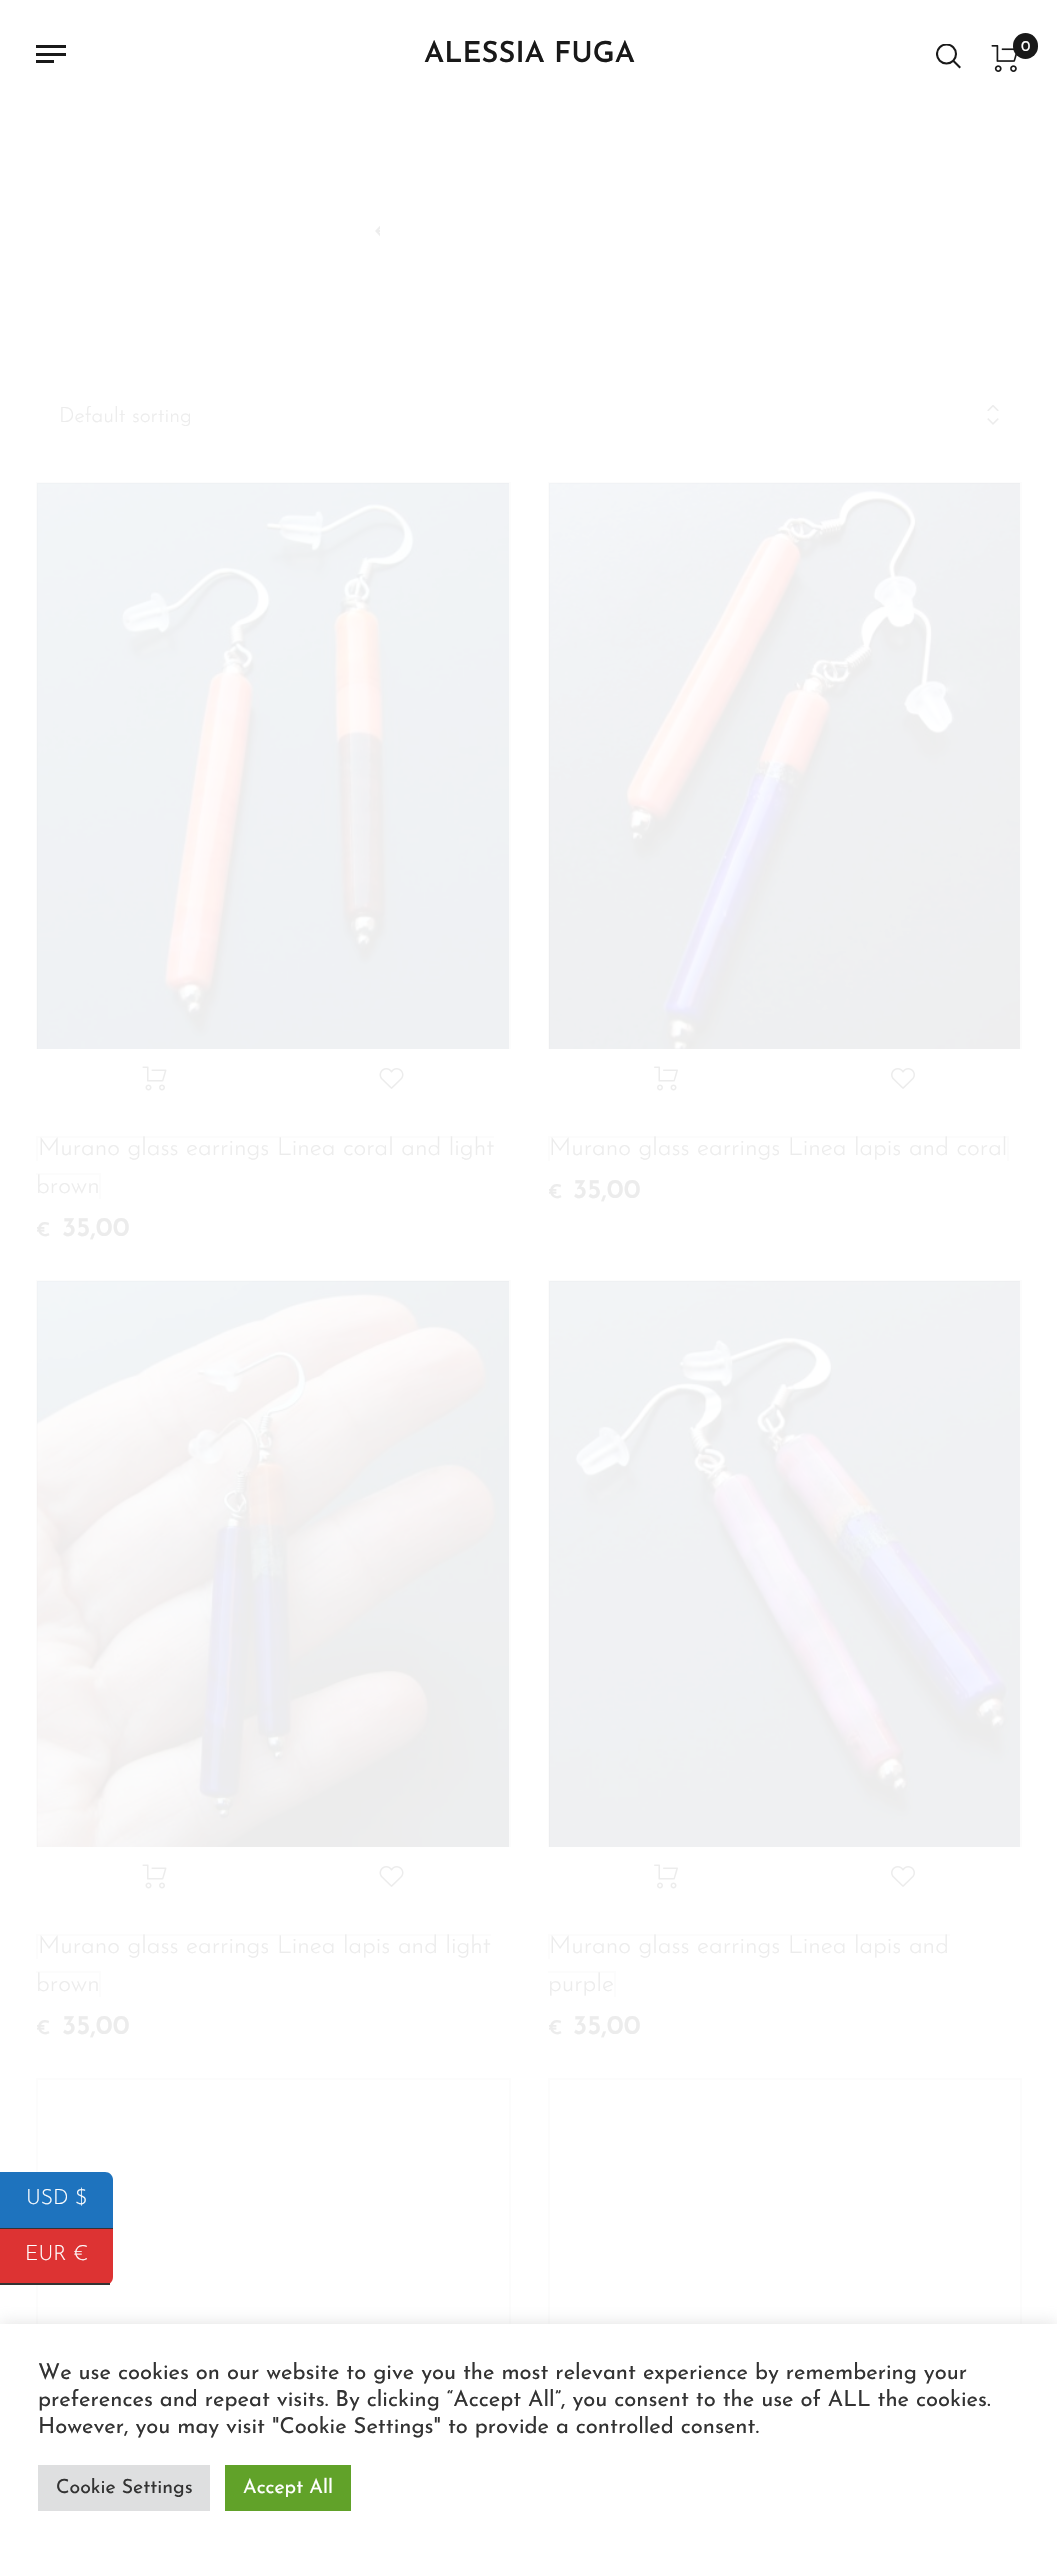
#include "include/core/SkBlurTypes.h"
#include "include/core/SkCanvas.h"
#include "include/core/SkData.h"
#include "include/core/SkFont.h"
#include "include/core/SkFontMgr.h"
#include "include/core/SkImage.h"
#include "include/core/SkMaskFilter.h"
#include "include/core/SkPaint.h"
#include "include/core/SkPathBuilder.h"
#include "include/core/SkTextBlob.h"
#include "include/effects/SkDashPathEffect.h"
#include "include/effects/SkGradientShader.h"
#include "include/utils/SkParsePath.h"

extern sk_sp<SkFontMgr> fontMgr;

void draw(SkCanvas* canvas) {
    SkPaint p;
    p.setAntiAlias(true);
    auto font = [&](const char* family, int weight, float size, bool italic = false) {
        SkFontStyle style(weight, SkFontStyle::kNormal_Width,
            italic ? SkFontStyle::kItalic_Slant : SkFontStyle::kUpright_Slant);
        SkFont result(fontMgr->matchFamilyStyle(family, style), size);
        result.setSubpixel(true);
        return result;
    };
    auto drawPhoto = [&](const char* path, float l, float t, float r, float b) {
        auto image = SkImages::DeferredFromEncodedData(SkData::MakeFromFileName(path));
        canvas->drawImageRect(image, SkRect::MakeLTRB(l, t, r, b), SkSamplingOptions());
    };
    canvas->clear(0xFFFFFFFF);
    {
        const struct { float l, t, r, b; SkColor color; } items[] = {
            {36, 45, 66, 48, 0xFF191919},
            {36, 53, 66, 56, 0xFF191919},
            {36, 60, 54, 63, 0xFF191919},
        };
        for (auto [l, t, r, b, color] : items) {
            p.setColor(color);
            canvas->drawRect(SkRect::MakeLTRB(l, t, r, b), p);
        }
    }
    auto font1 = font("Josefin Sans", 600, 29);
    canvas->drawString("ALESSIA FUGA", 424, 62, font1, p);
    p.setStyle(SkPaint::kStroke_Style);
    p.setStrokeWidth(2.1f);
    p.setStrokeCap(SkPaint::kSquare_Cap);
    canvas->drawPath(SkPathBuilder().moveTo(959.5f, 67).lineTo(953.5f, 61).detach(), p);
    canvas->save();
    canvas->clipRect(SkRect::MakeLTRB(936, 44, 962, 69));
    p.setStrokeCap(SkPaint::kButt_Cap);
    canvas->drawCircle(946.5f, 54, 9.5f, p);
    canvas->restore();
    drawPhoto("media/1.png", 991, 45, 1017, 72);
    p.setStyle(SkPaint::kFill_Style);
    canvas->drawRoundRect(SkRect::MakeLTRB(1013, 33, 1038, 59), 12.5f, 12.5f, p);
    auto font2 = font("Josefin Sans", 400, 15);
    p.setColor(0xFFFFFFFF);
    canvas->drawString("0", 1021, 51, font2, p);
    p.setColor(0xFFEDEDED);
    canvas->drawRect(SkRect::MakeLTRB(377, 230, 380, 232), p);
    canvas->save();
    canvas->clipRect(SkRect::MakeLTRB(375, 215, 380, 248));
    p.setStyle(SkPaint::kStroke_Style);
    p.setStrokeCap(SkPaint::kSquare_Cap);
    canvas->drawPath(SkPathBuilder().moveTo(385.5f, 240.5f).lineTo(376.5f, 231).lineTo(385.5f, 221.5f).detach(), p);
    canvas->restore();
    auto font3 = font("Josefin Sans", 300, 21);
    p.setStyle(SkPaint::kFill_Style);
    p.setColor(0xFFECECEC);
    canvas->drawString("Default sorting", 59, 422, font3, p);
    drawPhoto("media/2.png", 987, 405, 999, 411);
    drawPhoto("media/3.png", 987, 418, 999, 425);
    {
        const struct { float l, t, r, b; SkColor color; } items[] = {
            {36, 482, 510, 484, 0xFFFCFCFC},
            {509, 482, 511, 1049, 0xFFFCFCFC},
            {36, 482, 38, 1049, 0xFFFCFCFC},
        };
        for (auto [l, t, r, b, color] : items) {
            p.setColor(color);
            canvas->drawRect(SkRect::MakeLTRB(l, t, r, b), p);
        }
    }
    drawPhoto("media/4.png", 37, 483, 509, 1049);
    drawPhoto("media/5.png", 142, 1066, 167, 1091);
    drawPhoto("media/6.png", 379, 1068, 404, 1089);
    canvas->drawRect(SkRect::MakeLTRB(36, 1136, 494, 1138), p);
    auto font4 = font("Josefin Sans", 300, 24.5f);
    p.setColor(0xFFECECEC);
    canvas->drawString("Murano glass earrings Linea coral and light", 38, 1155, font4, p);
    p.setColor(0xFFFCFCFC);
    canvas->drawRect(SkRect::MakeLTRB(36, 1136, 38, 1161), p);
    canvas->drawRect(SkRect::MakeLTRB(36, 1173, 101, 1175), p);
    p.setColor(0xFFECECEC);
    canvas->drawString("brown", 36, 1193, font4, p);
    p.setColor(0xFFFCFCFC);
    canvas->drawRect(SkRect::MakeLTRB(99, 1173, 101, 1199), p);
    auto font5 = font("Josefin Sans", 600, 19);
    p.setColor(0xFFECECEC);
    canvas->drawString("€", 36, 1236, font5, p);
    auto font6 = font("Josefin Sans", 600, 27);
    canvas->drawString("35,00", 62, 1236, font6, p);
    {
        const struct { float l, t, r, b; SkColor color; } items[] = {
            {548, 482, 1022, 484, 0xFFFCFCFC},
            {1020, 482, 1022, 1049, 0xFFFCFCFC},
            {548, 482, 550, 1049, 0xFFFCFCFC},
        };
        for (auto [l, t, r, b, color] : items) {
            p.setColor(color);
            canvas->drawRect(SkRect::MakeLTRB(l, t, r, b), p);
        }
    }
    drawPhoto("media/7.png", 549, 483, 1020, 1049);
    drawPhoto("media/8.png", 654, 1066, 678, 1091);
    drawPhoto("media/9.png", 891, 1068, 915, 1089);
    canvas->drawRect(SkRect::MakeLTRB(548, 1136, 1008, 1138), p);
    p.setColor(0xFFECECEC);
    canvas->drawString("Murano glass earrings Linea lapis and coral", 549, 1155, font4, p);
    p.setColor(0xFFFCFCFC);
    canvas->drawRect(SkRect::MakeLTRB(1007, 1136, 1009, 1161), p);
    canvas->drawRect(SkRect::MakeLTRB(548, 1136, 550, 1161), p);
    p.setColor(0xFFECECEC);
    canvas->drawString("€", 548, 1198, font5, p);
    canvas->drawString("35,00", 573, 1198, font6, p);
    {
        const struct { float l, t, r, b; SkColor color; } items[] = {
            {36, 1280, 510, 1282, 0xFFFCFCFC},
            {509, 1280, 511, 1847, 0xFFFCFCFC},
            {36, 1280, 38, 1847, 0xFFFCFCFC},
        };
        for (auto [l, t, r, b, color] : items) {
            p.setColor(color);
            canvas->drawRect(SkRect::MakeLTRB(l, t, r, b), p);
        }
    }
    drawPhoto("media/10.png", 37, 1281, 509, 1847);
    drawPhoto("media/5.png", 142, 1864, 167, 1889);
    drawPhoto("media/6.png", 379, 1866, 404, 1887);
    canvas->drawRect(SkRect::MakeLTRB(36, 1934, 491, 1936), p);
    p.setColor(0xFFECECEC);
    canvas->drawString("Murano glass earrings Linea lapis and light", 38, 1953, font4, p);
    p.setColor(0xFFFCFCFC);
    canvas->drawRect(SkRect::MakeLTRB(36, 1934, 38, 1959), p);
    canvas->drawRect(SkRect::MakeLTRB(36, 1971, 101, 1973), p);
    p.setColor(0xFFECECEC);
    canvas->drawString("brown", 36, 1991, font4, p);
    p.setColor(0xFFFCFCFC);
    canvas->drawRect(SkRect::MakeLTRB(99, 1971, 101, 1997), p);
    p.setColor(0xFFECECEC);
    canvas->drawString("€", 36, 2034, font5, p);
    canvas->drawString("35,00", 62, 2034, font6, p);
    {
        const struct { float l, t, r, b; SkColor color; } items[] = {
            {548, 1280, 1022, 1282, 0xFFFCFCFC},
            {1020, 1280, 1022, 1847, 0xFFFCFCFC},
            {548, 1280, 550, 1847, 0xFFFCFCFC},
        };
        for (auto [l, t, r, b, color] : items) {
            p.setColor(color);
            canvas->drawRect(SkRect::MakeLTRB(l, t, r, b), p);
        }
    }
    drawPhoto("media/11.png", 549, 1281, 1020, 1847);
    drawPhoto("media/8.png", 654, 1864, 678, 1889);
    drawPhoto("media/9.png", 891, 1866, 915, 1887);
    canvas->drawRect(SkRect::MakeLTRB(548, 1934, 950, 1936), p);
    p.setColor(0xFFECECEC);
    canvas->drawString("Murano glass earrings Linea lapis and", 549, 1953, font4, p);
    p.setColor(0xFFFCFCFC);
    canvas->drawRect(SkRect::MakeLTRB(548, 1934, 550, 1959), p);
    canvas->drawRect(SkRect::MakeLTRB(548, 1971, 615, 1973), p);
    p.setColor(0xFFECECEC);
    canvas->drawString("purple", 548, 1991, font4, p);
    p.setColor(0xFFFCFCFC);
    canvas->drawRect(SkRect::MakeLTRB(614, 1971, 616, 1997), p);
    p.setColor(0xFFECECEC);
    canvas->drawString("€", 548, 2034, font5, p);
    canvas->drawString("35,00", 573, 2034, font6, p);
    {
        const struct { float l, t, r, b; SkColor color; } items[] = {
            {36, 2078, 510, 2080, 0xFFFCFCFC},
            {509, 2078, 511, 2324, 0xFFFCFCFC},
            {36, 2078, 38, 2324, 0xFFFCFCFC},
            {548, 2078, 1022, 2080, 0xFFFCFCFC},
            {1020, 2078, 1022, 2324, 0xFFFCFCFC},
            {548, 2078, 550, 2324, 0xFFFCFCFC},
        };
        for (auto [l, t, r, b, color] : items) {
            p.setColor(color);
            canvas->drawRect(SkRect::MakeLTRB(l, t, r, b), p);
        }
    }
    p.setColor(0xFF1E73BE);
    canvas->drawPath(SkPathBuilder().moveTo(0, 2172).lineTo(105, 2172).cubicTo(109.5f, 2172, 113, 2175.5f, 113, 2180).lineTo(113, 2229).lineTo(0, 2229).close().detach(), p);
    p.setColor(0xFF333333);
    canvas->drawRect(SkRect::MakeLTRB(0, 2228, 113, 2229), p);
    p.setColor(0xFFFFFFFF);
    canvas->drawString("USD $", 26, 2204, font3, p);
    p.setColor(0xFFDD3333);
    canvas->drawPath(SkPathBuilder().moveTo(0, 2229).lineTo(113, 2229).lineTo(113, 2277).cubicTo(113, 2281.5f, 109.5f, 2285, 105, 2285).lineTo(0, 2285).close().detach(), p);
    p.setColor(0xFF333333);
    canvas->drawRect(SkRect::MakeLTRB(0, 2283, 110, 2285), p);
    p.setColor(0xFFFFFFFF);
    canvas->drawString("EUR €", 25, 2260, font3, p);
    p.setColor(0x4DACABAB);
    p.setMaskFilter(SkMaskFilter::MakeBlur(kNormal_SkBlurStyle, 7.5f));
    canvas->drawRect(SkRect::MakeLTRB(0, 2322, 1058, 2555), p);
    p.setMaskFilter(nullptr);
    p.setColor(0xFFFFFFFF);
    canvas->drawRect(SkRect::MakeLTRB(0, 2324, 1057, 2555), p);
    auto font7 = font("Josefin Sans", 400, 22);
    p.setColor(0xFF333333);
    {
        const struct { const char* s; float x, y; } items[] = {
            {"We use cookies on our website to give you the most relevant experience by remembering your", 38, 2379},
            {"preferences and repeat visits. By clicking “Accept All”, you consent to the use of ALL the cookies.", 38, 2406},
            {"However, you may visit \"Cookie Settings\" to provide a controlled consent.", 38, 2433},
        };
        for (auto [s, x, y] : items) {
            canvas->drawString(s, x, y, font7, p);
        }
    }
    p.setColor(0xFFDEDFE0);
    canvas->drawRect(SkRect::MakeLTRB(38, 2465, 210, 2511), p);
    auto font8 = font("Josefin Sans", 400, 19.5f);
    p.setColor(0xFF333333);
    canvas->drawString("Cookie Settings", 56, 2493, font8, p);
    p.setColor(0xFF61A229);
    canvas->drawRect(SkRect::MakeLTRB(225, 2465, 351, 2511), p);
    p.setColor(0xFFFFFFFF);
    canvas->drawString("Accept All", 243, 2493, font8, p);
}
